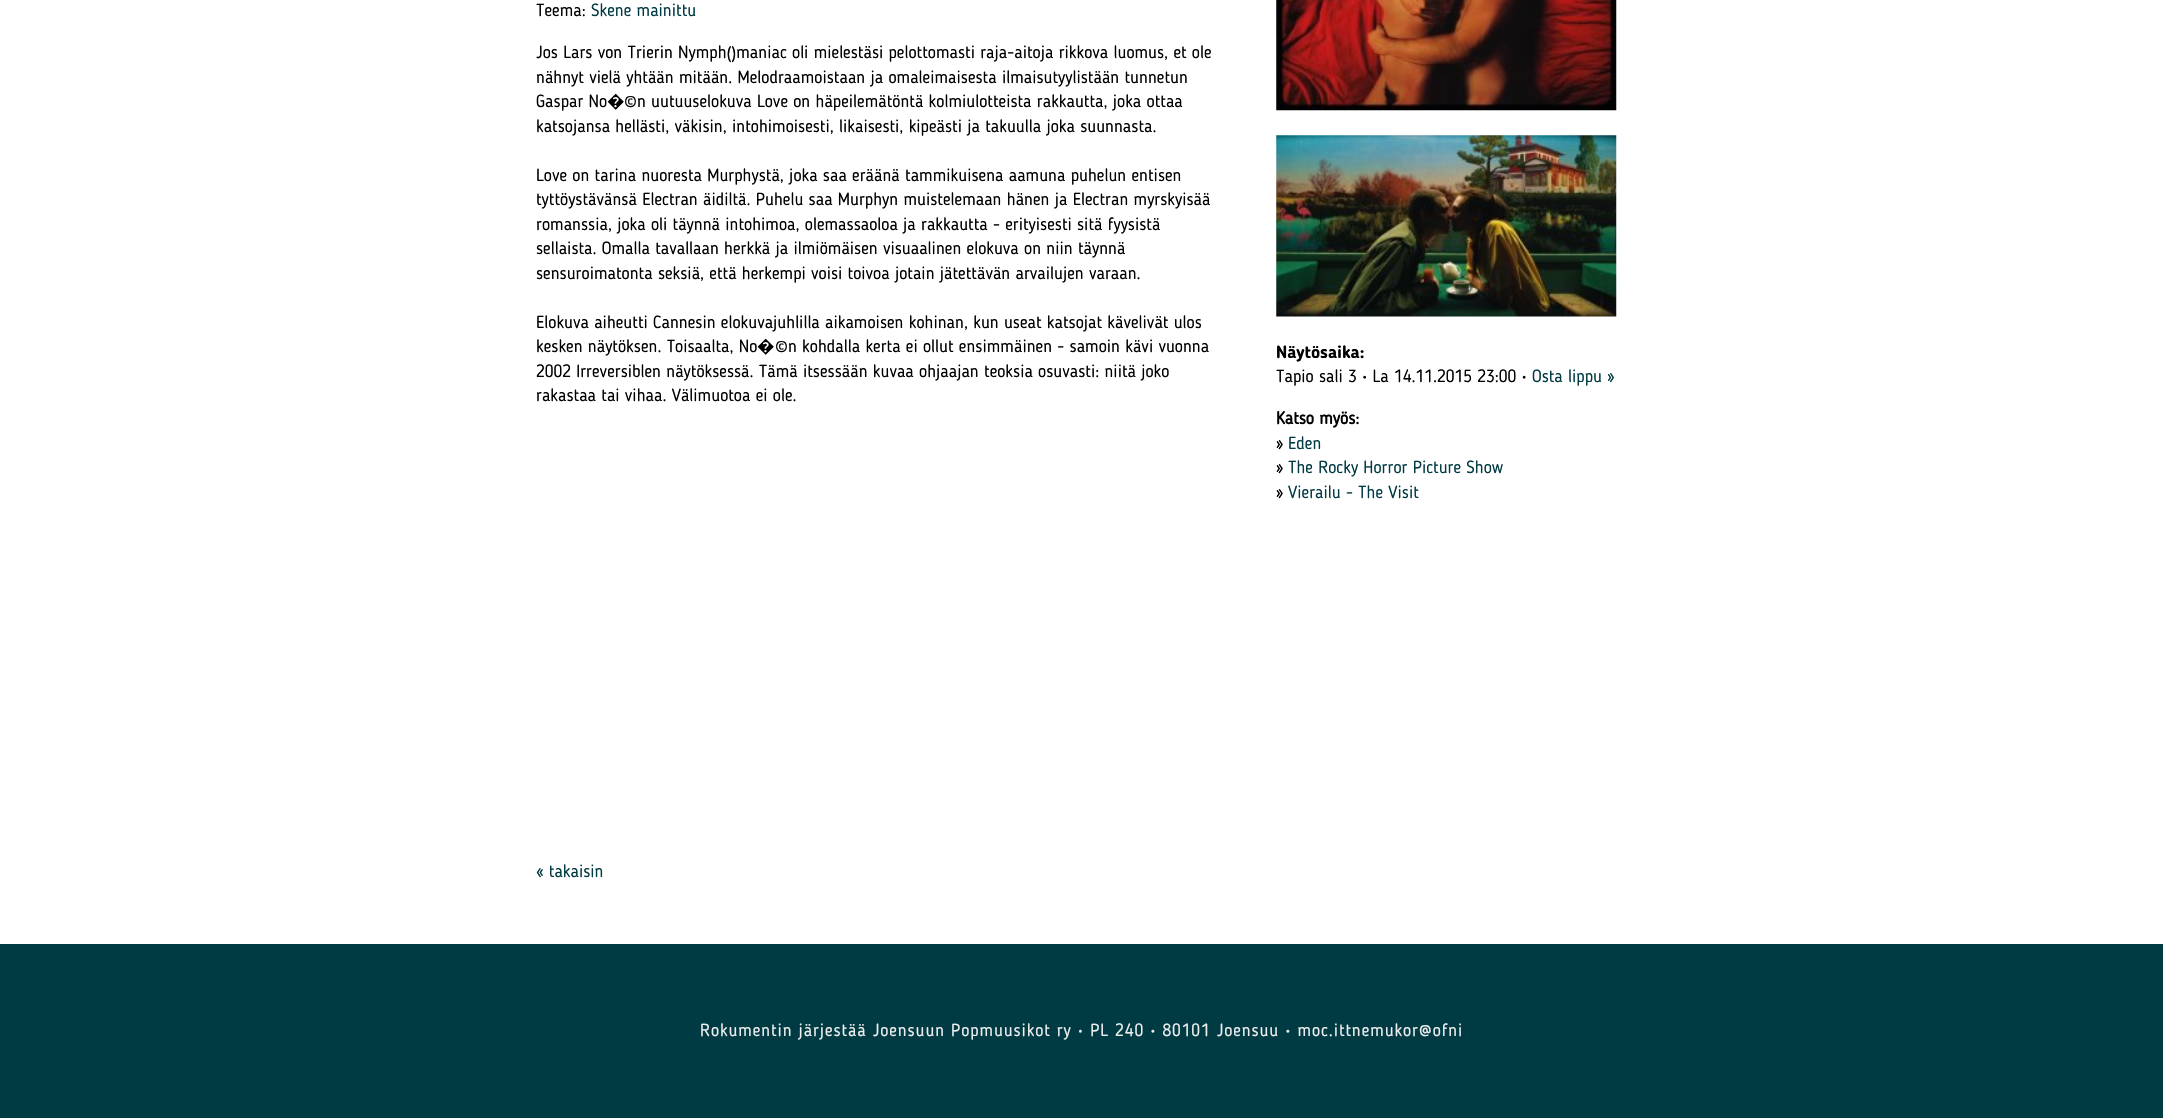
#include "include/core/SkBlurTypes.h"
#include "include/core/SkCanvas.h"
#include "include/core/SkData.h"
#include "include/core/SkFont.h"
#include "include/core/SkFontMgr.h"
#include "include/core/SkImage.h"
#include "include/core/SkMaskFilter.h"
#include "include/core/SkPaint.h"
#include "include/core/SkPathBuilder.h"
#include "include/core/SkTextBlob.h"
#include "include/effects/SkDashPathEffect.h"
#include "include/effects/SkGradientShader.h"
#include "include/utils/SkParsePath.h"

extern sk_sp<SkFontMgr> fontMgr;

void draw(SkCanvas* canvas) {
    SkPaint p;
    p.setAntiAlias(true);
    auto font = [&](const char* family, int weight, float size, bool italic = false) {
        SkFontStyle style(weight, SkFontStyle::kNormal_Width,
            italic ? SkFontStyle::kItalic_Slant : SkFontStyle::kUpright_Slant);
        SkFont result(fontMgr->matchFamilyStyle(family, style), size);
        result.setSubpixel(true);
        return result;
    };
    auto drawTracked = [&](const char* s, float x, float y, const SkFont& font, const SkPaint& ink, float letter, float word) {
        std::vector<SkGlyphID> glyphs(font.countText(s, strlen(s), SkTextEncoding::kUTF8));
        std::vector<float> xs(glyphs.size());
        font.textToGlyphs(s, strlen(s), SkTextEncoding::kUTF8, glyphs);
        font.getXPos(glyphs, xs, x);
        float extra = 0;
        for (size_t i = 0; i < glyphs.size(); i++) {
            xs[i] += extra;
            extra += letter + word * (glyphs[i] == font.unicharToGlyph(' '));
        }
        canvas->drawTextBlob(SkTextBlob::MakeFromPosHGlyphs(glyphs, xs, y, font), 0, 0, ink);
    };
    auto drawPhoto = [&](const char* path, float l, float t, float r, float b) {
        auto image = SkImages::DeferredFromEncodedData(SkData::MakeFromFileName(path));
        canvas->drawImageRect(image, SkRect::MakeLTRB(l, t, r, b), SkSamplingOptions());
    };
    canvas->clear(0xFF003A43);
    p.setColor(0xFFFFFFFF);
    canvas->drawRect(SkRect::MakeLTRB(0, 0, 2163, 944), p);
    auto font1 = font("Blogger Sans", 400, 17.5f);
    p.setColor(0xFF000000);
    canvas->drawString("Teema:", 536, 16, font1, p);
    p.setColor(0xFF003A43);
    canvas->drawString("Skene mainittu", 591, 16, font1, p);
    p.setColor(0xFF000000);
    {
        const struct { const char* s; float x, y; } items[] = {
            {"Jos Lars von Trierin Nymph()maniac oli mielestäsi pelottomasti raja-aitoja rikkova luomus, et ole", 536, 58},
            {"nähnyt vielä yhtään mitään. Melodraamoistaan ja omaleimaisesta ilmaisutyylistään tunnetun", 536, 83},
            {"Gaspar No", 536, 107},
        };
        for (auto [s, x, y] : items) {
            canvas->drawString(s, x, y, font1, p);
        }
    }
    auto font2 = font("Noto Sans", 400, 17.5f);
    canvas->drawString("�", 607, 107, font2, p);
    {
        const struct { const char* s; float x, y; } items[] = {
            {"©n uutuuselokuva Love on häpeilemätöntä kolmiulotteista rakkautta, joka ottaa", 624, 107},
            {"katsojansa hellästi, väkisin, intohimoisesti, likaisesti, kipeästi ja takuulla joka suunnasta.", 536, 132},
            {"Love on tarina nuoresta Murphystä, joka saa eräänä tammikuisena aamuna puhelun entisen", 536, 181},
            {"tyttöystävänsä Electran äidiltä. Puhelu saa Murphyn muistelemaan hänen ja Electran myrskyisää", 536, 205},
            {"romanssia, joka oli täynnä intohimoa, olemassaoloa ja rakkautta - erityisesti sitä fyysistä", 536, 230},
            {"sellaista. Omalla tavallaan herkkä ja ilmiömäisen visuaalinen elokuva on niin täynnä", 536, 254},
            {"sensuroimatonta seksiä, että herkempi voisi toivoa jotain jätettävän arvailujen varaan.", 536, 279},
            {"Elokuva aiheutti Cannesin elokuvajuhlilla aikamoisen kohinan, kun useat katsojat kävelivät ulos", 536, 328},
            {"kesken näytöksen. Toisaalta, No", 536, 352},
        };
        for (auto [s, x, y] : items) {
            canvas->drawString(s, x, y, font1, p);
        }
    }
    canvas->drawString("�", 757, 352, font2, p);
    {
        const struct { const char* s; float x, y; } items[] = {
            {"©n kohdalla kerta ei ollut ensimmäinen - samoin kävi vuonna", 775, 352},
            {"2002 Irreversiblen näytöksessä. Tämä itsessään kuvaa ohjaajan teoksia osuvasti: niitä joko", 536, 377},
            {"rakastaa tai vihaa. Välimuotoa ei ole.", 536, 401},
        };
        for (auto [s, x, y] : items) {
            canvas->drawString(s, x, y, font1, p);
        }
    }
    p.setColor(0xFF003A43);
    canvas->drawString("« takaisin", 536, 877, font1, p);
    drawPhoto("media/1.png", 1276, 0, 1617, 111);
    drawPhoto("media/2.png", 1276, 135, 1617, 317);
    auto font3 = font("Blogger Sans", 700, 17.5f);
    p.setColor(0xFF000000);
    canvas->drawString("Näytösaika:", 1276, 358, font3, p);
    canvas->drawString("Tapio sali 3 • La 14.11.2015 23:00 •", 1276, 382, font1, p);
    p.setColor(0xFF003A43);
    canvas->drawString("Osta lippu »", 1532, 382, font1, p);
    auto font4 = font("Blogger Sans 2", 700, 17.5f);
    p.setColor(0xFF000000);
    canvas->drawString("Katso myös:", 1276, 424, font4, p);
    canvas->drawString("»", 1276, 449, font1, p);
    p.setColor(0xFF003A43);
    canvas->drawString("Eden", 1288, 449, font1, p);
    p.setColor(0xFF000000);
    canvas->drawString("»", 1276, 473, font1, p);
    p.setColor(0xFF003A43);
    canvas->drawString("The Rocky Horror Picture Show", 1288, 473, font1, p);
    p.setColor(0xFF000000);
    canvas->drawString("»", 1276, 498, font1, p);
    p.setColor(0xFF003A43);
    canvas->drawString("Vierailu - The Visit", 1288, 498, font1, p);
    p.setColor(0xFFEEEEEE);
    drawTracked("Rokumentin järjestää Joensuun Popmuusikot ry • PL 240 • 80101 Joensuu • moc.ittnemukor@ofni", 700, 1036, font1, p, 0.88f, 0);
}
